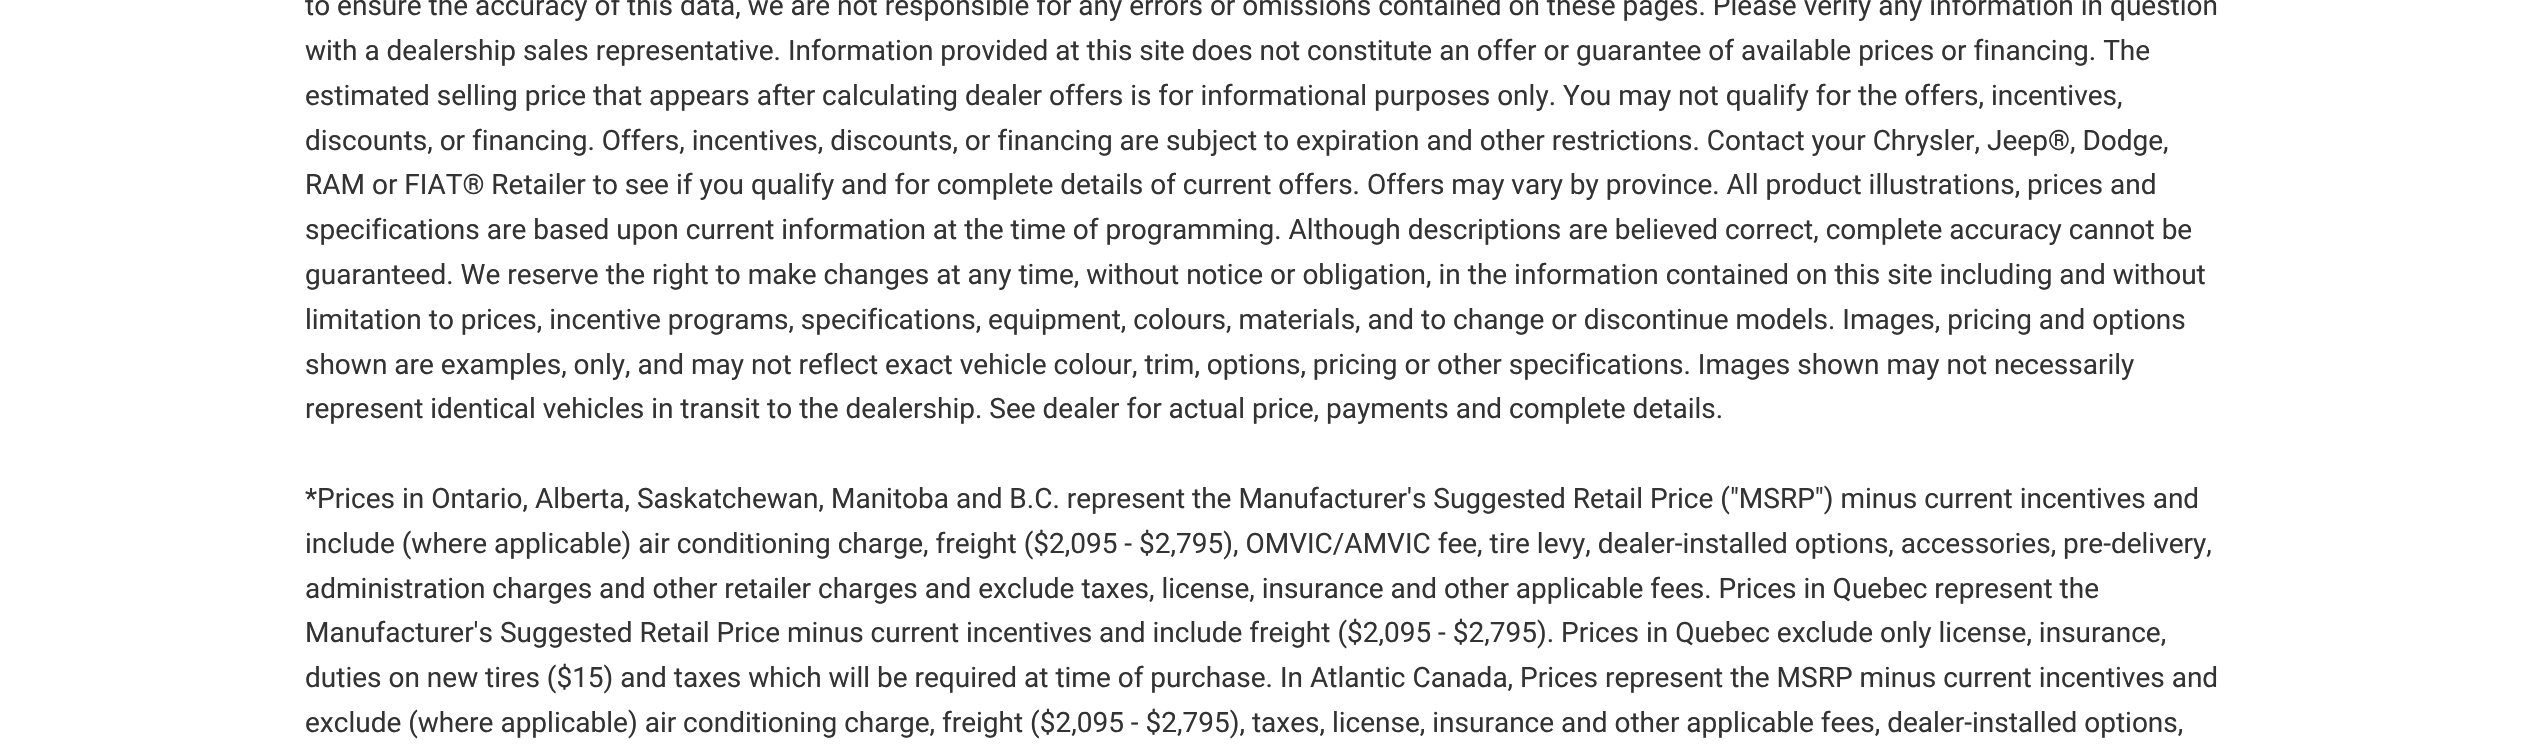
#include "include/core/SkBlurTypes.h"
#include "include/core/SkCanvas.h"
#include "include/core/SkData.h"
#include "include/core/SkFont.h"
#include "include/core/SkFontMgr.h"
#include "include/core/SkImage.h"
#include "include/core/SkMaskFilter.h"
#include "include/core/SkPaint.h"
#include "include/core/SkPathBuilder.h"
#include "include/core/SkTextBlob.h"
#include "include/effects/SkDashPathEffect.h"
#include "include/effects/SkGradientShader.h"
#include "include/utils/SkParsePath.h"

extern sk_sp<SkFontMgr> fontMgr;

void draw(SkCanvas* canvas) {
    SkPaint p;
    p.setAntiAlias(true);
    auto font = [&](const char* family, int weight, float size, bool italic = false) {
        SkFontStyle style(weight, SkFontStyle::kNormal_Width,
            italic ? SkFontStyle::kItalic_Slant : SkFontStyle::kUpright_Slant);
        SkFont result(fontMgr->matchFamilyStyle(family, style), size);
        result.setSubpixel(true);
        return result;
    };
    canvas->clear(0xFFFFFFFF);
    auto font1 = font("Roboto", 400, 28);
    p.setColor(0xFF333333);
    {
        const struct { const char* s; float x, y; } items[] = {
            {"to ensure the accuracy of this data, we are not responsible for any errors or omissions contained on these pages. Please verify any information in question", 305, 15},
            {"with a dealership sales representative. Information provided at this site does not constitute an offer or guarantee of available prices or financing. The", 305, 60},
            {"estimated selling price that appears after calculating dealer offers is for informational purposes only. You may not qualify for the offers, incentives,", 305, 105},
            {"discounts, or financing. Offers, incentives, discounts, or financing are subject to expiration and other restrictions. Contact your Chrysler, Jeep®, Dodge,", 305, 150},
            {"RAM or FIAT® Retailer to see if you qualify and for complete details of current offers. Offers may vary by province. All product illustrations, prices and", 305, 194},
            {"specifications are based upon current information at the time of programming. Although descriptions are believed correct, complete accuracy cannot be", 305, 239},
            {"guaranteed. We reserve the right to make changes at any time, without notice or obligation, in the information contained on this site including and without", 305, 284},
            {"limitation to prices, incentive programs, specifications, equipment, colours, materials, and to change or discontinue models. Images, pricing and options", 305, 329},
            {"shown are examples, only, and may not reflect exact vehicle colour, trim, options, pricing or other specifications. Images shown may not necessarily", 305, 374},
            {"represent identical vehicles in transit to the dealership. See dealer for actual price, payments and complete details.", 305, 418},
            {"*Prices in Ontario, Alberta, Saskatchewan, Manitoba and B.C. represent the Manufacturer's Suggested Retail Price (\"MSRP\") minus current incentives and", 305, 508},
            {"include (where applicable) air conditioning charge, freight ($2,095 - $2,795), OMVIC/AMVIC fee, tire levy, dealer-installed options, accessories, pre-delivery,", 305, 553},
            {"administration charges and other retailer charges and exclude taxes, license, insurance and other applicable fees. Prices in Quebec represent the", 305, 598},
            {"Manufacturer's Suggested Retail Price minus current incentives and include freight ($2,095 - $2,795). Prices in Quebec exclude only license, insurance,", 305, 642},
            {"duties on new tires ($15) and taxes which will be required at time of purchase. In Atlantic Canada, Prices represent the MSRP minus current incentives and", 305, 687},
            {"exclude (where applicable) air conditioning charge, freight ($2,095 - $2,795), taxes, license, insurance and other applicable fees, dealer-installed options,", 305, 732},
        };
        for (auto [s, x, y] : items) {
            canvas->drawString(s, x, y, font1, p);
        }
    }
}
